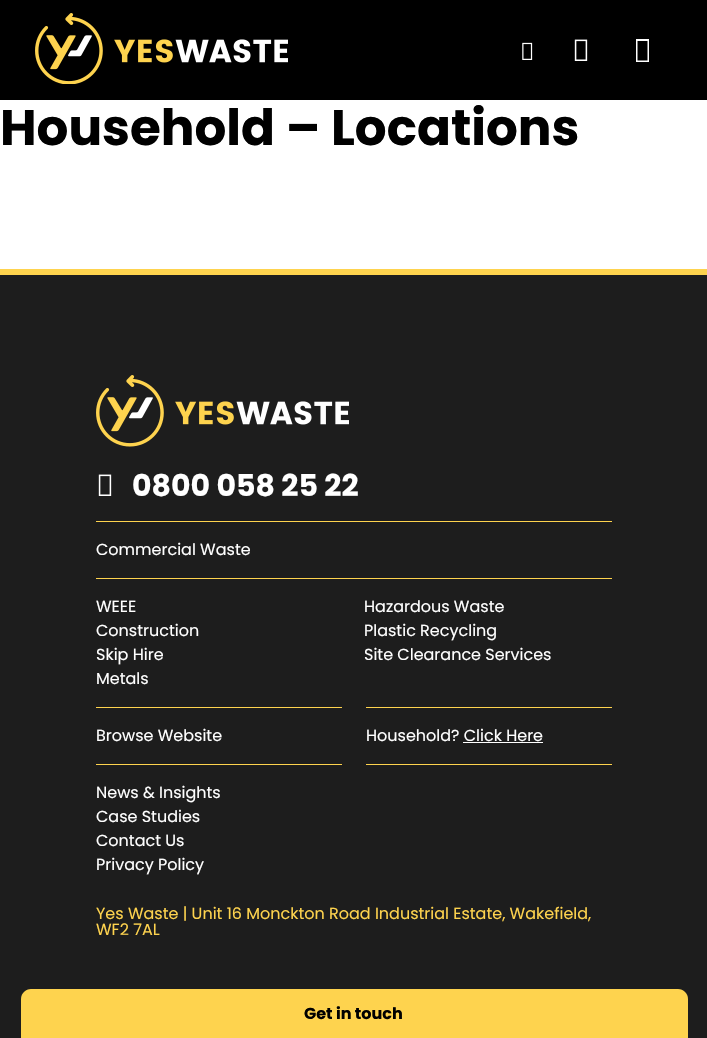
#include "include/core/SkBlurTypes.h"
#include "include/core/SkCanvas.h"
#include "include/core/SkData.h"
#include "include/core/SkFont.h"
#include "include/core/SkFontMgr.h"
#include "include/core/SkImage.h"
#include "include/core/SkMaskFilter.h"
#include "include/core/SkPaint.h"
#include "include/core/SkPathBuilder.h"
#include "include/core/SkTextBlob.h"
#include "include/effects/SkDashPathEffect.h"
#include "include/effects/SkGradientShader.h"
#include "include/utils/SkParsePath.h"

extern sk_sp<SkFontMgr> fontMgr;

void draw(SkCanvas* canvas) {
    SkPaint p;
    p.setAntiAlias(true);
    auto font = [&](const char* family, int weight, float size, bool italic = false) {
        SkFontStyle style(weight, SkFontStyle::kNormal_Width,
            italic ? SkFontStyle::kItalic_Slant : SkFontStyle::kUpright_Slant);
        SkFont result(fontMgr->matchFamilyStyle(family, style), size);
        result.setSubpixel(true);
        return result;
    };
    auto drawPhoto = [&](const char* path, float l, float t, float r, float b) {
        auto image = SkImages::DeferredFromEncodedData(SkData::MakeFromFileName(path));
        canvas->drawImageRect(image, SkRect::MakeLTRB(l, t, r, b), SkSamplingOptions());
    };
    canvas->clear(0xFFFFFFFF);
    p.setColor(0xFF000000);
    canvas->drawRect(SkRect::MakeLTRB(0, 0, 707, 100), p);
    drawPhoto("media/1.png", 35, 13, 288, 84);
    drawPhoto("media/2.png", 522, 42, 533, 60);
    drawPhoto("media/3.png", 574, 39, 588, 61);
    p.setColor(0xFFFFFFFF);
    canvas->drawPath(SkPathBuilder().moveTo(636, 62).lineTo(636, 39).lineTo(649, 39).lineTo(649, 62).close().moveTo(637.5f, 60.5f).lineTo(647.5f, 60.5f).lineTo(647.5f, 41).lineTo(637.5f, 41).close().detach(), p);
    auto font1 = font("Poppins", 700, 50);
    p.setColor(0xFF000000);
    canvas->drawString("Household – Locations", 0, 145, font1, p);
    p.setColor(0xFF1D1D1D);
    canvas->drawRect(SkRect::MakeLTRB(0, 275, 707, 1038), p);
    p.setColor(0xFFFED34E);
    canvas->drawRect(SkRect::MakeLTRB(0, 269, 707, 275), p);
    drawPhoto("media/4.png", 96, 375, 349, 447);
    drawPhoto("media/5.png", 98, 474, 112, 496);
    auto font2 = font("Poppins", 700, 30);
    p.setColor(0xFFFFFFFF);
    canvas->drawString("0800 058 25 22", 132, 496, font2, p);
    p.setColor(0xFFFED34E);
    canvas->drawRect(SkRect::MakeLTRB(96, 521, 612, 522), p);
    canvas->drawRect(SkRect::MakeLTRB(96, 578, 612, 579), p);
    auto font3 = font("Poppins", 400, 16);
    p.setColor(0xFFFFFFFF);
    {
        const struct { const char* s; float x, y; } items[] = {
            {"Commercial Waste", 96, 555},
            {"WEEE", 96, 612},
            {"Hazardous Waste", 364, 612},
            {"Construction", 96, 636},
            {"Plastic Recycling", 364, 636},
            {"Skip Hire", 96, 660},
            {"Site Clearance Services", 364, 660},
            {"Metals", 96, 684},
        };
        for (auto [s, x, y] : items) {
            canvas->drawString(s, x, y, font3, p);
        }
    }
    p.setColor(0xFFFED34E);
    canvas->drawRect(SkRect::MakeLTRB(96, 707, 342, 708), p);
    canvas->drawRect(SkRect::MakeLTRB(96, 764, 342, 765), p);
    p.setColor(0xFFFFFFFF);
    {
        const struct { const char* s; float x, y; } items[] = {
            {"Browse Website", 96, 741},
            {"News & Insights", 96, 798},
            {"Case Studies", 96, 822},
            {"Contact Us", 96, 846},
            {"Privacy Policy", 96, 870},
        };
        for (auto [s, x, y] : items) {
            canvas->drawString(s, x, y, font3, p);
        }
    }
    p.setColor(0xFFFED34E);
    canvas->drawRect(SkRect::MakeLTRB(366, 707, 612, 708), p);
    canvas->drawRect(SkRect::MakeLTRB(366, 764, 612, 765), p);
    p.setColor(0xFFFFFFFF);
    canvas->drawString("Household? Click Here", 366, 741, font3, p);
    canvas->drawRect(SkRect::MakeLTRB(463, 742, 543, 743), p);
    p.setColor(0xFFFED34E);
    canvas->drawString("Yes Waste | Unit 16 Monckton Road Industrial Estate, Wakefield,", 96, 919, font3, p);
    canvas->drawString("WF2 7AL", 96, 935, font3, p);
    canvas->drawPath(SkPathBuilder().moveTo(31, 989).lineTo(678, 989).cubicTo(683.5f, 989, 688, 993.5f, 688, 999).lineTo(688, 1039).lineTo(21, 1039).lineTo(21, 999).cubicTo(21, 993.5f, 25.5f, 989, 31, 989).close().detach(), p);
    auto font4 = font("Poppins", 700, 16);
    p.setColor(0xFF000000);
    canvas->drawString("Get in touch", 304, 1019, font4, p);
}
